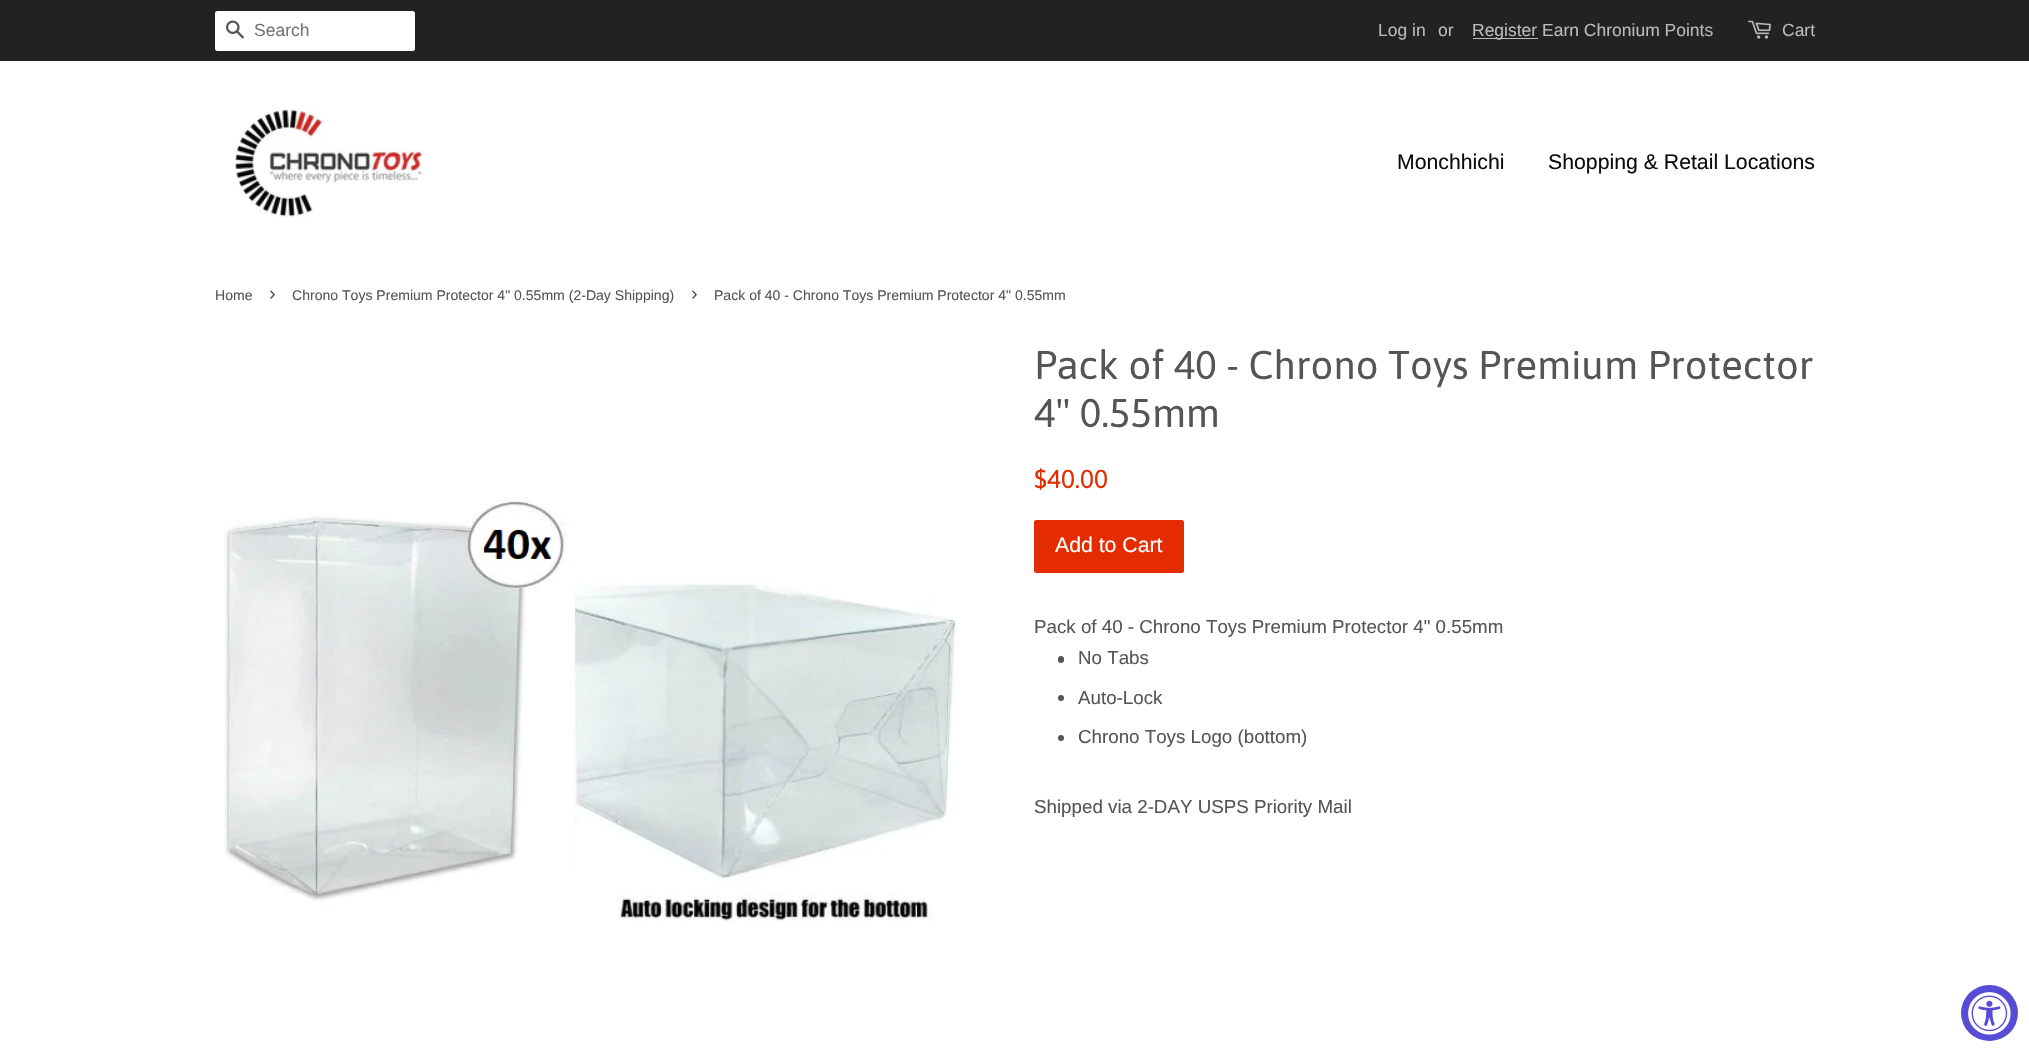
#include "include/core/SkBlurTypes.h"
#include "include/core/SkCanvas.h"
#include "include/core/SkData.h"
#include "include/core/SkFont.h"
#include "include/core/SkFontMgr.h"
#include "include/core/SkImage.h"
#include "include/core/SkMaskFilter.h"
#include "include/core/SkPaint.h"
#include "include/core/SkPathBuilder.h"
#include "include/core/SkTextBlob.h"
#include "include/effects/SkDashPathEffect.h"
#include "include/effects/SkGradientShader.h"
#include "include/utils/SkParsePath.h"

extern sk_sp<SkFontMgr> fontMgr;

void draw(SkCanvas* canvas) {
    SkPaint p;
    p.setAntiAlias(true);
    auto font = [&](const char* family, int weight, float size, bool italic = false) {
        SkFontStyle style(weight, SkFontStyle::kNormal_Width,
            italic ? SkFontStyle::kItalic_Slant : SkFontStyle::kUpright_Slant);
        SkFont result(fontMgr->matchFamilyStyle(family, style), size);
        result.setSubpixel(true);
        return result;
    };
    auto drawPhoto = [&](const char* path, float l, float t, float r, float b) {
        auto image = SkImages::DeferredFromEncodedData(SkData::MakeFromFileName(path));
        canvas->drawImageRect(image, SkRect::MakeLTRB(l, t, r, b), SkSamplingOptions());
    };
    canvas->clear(0xFFFFFFFF);
    p.setColor(0xFF222222);
    canvas->drawRect(SkRect::MakeLTRB(0, 0, 2029, 61), p);
    p.setColor(0xFFFFFFFF);
    canvas->drawRoundRect(SkRect::MakeLTRB(215, 11, 415, 51), 2.5f, 2.5f, p);
    drawPhoto("media/1.png", 226, 20, 244, 39);
    auto font1 = font("Liberation Sans", 400, 17.5f);
    p.setColor(0xFF757575);
    canvas->drawString("Search", 254, 36, font1, p);
    p.setColor(0xFFBBBBBB);
    canvas->drawString("Log in", 1378, 36, font1, p);
    canvas->drawString("or", 1438, 36, font1, p);
    canvas->drawRect(SkRect::MakeLTRB(1473, 38, 1538, 39), p);
    canvas->drawString("Register Earn Chronium Points", 1472, 36, font1, p);
    drawPhoto("media/2.png", 1748, 20, 1771, 39);
    canvas->drawString("Cart", 1782, 36, font1, p);
    drawPhoto("media/3.png", 234, 109, 425, 219);
    auto font2 = font("Liberation Sans", 400, 21.25f);
    p.setColor(0xFF0D0B0B);
    canvas->drawString("Monchhichi", 1397, 169, font2, p);
    canvas->drawString("Shopping & Retail Locations", 1548, 169, font2, p);
    auto font3 = font("Liberation Sans", 400, 14.05f);
    p.setColor(0xFF555555);
    canvas->drawString("Home", 215, 300, font3, p);
    auto font4 = font("Liberation Sans", 400, 20);
    canvas->drawString("›", 269, 300, font4, p);
    canvas->drawString("Chrono Toys Premium Protector 4\" 0.55mm (2-Day Shipping)", 292, 300, font3, p);
    canvas->drawString("›", 691, 300, font4, p);
    canvas->drawString("Pack of 40 - Chrono Toys Premium Protector 4\" 0.55mm", 714, 300, font3, p);
    drawPhoto("media/4.png", 224, 497, 957, 922);
    auto font5 = font("Asap", 400, 40);
    canvas->drawString("Pack of 40 - Chrono Toys Premium Protector", 1034, 379, font5, p);
    canvas->drawString("4\" 0.55mm", 1034, 427, font5, p);
    auto font6 = font("Asap", 400, 26);
    p.setColor(0xFFE42C00);
    canvas->drawString("$40.00", 1034, 488, font6, p);
    canvas->drawRoundRect(SkRect::MakeLTRB(1034, 520, 1184, 573), 2.5f, 2.5f, p);
    p.setColor(0xFFFFFFFF);
    canvas->drawString("Add to Cart", 1055, 552, font2, p);
    auto font7 = font("Liberation Sans", 400, 18.75f);
    p.setColor(0xFF555555);
    canvas->drawString("Pack of 40 - Chrono Toys Premium Protector 4\" 0.55mm", 1034, 633, font7, p);
    canvas->drawRoundRect(SkRect::MakeLTRB(1058, 656, 1064, 663), 3, 3, p);
    canvas->drawString("No Tabs", 1078, 664, font7, p);
    canvas->drawCircle(1061, 698, 3, p);
    canvas->drawString("Auto-Lock", 1078, 704, font7, p);
    canvas->drawCircle(1061, 738, 3, p);
    canvas->drawString("Chrono Toys Logo (bottom)", 1078, 743, font7, p);
    canvas->drawString("Shipped via 2-DAY USPS Priority Mail", 1034, 813, font7, p);
    p.setColor(0xFF574CD5);
    canvas->drawRoundRect(SkRect::MakeLTRB(1961, 985, 2018, 1041), 28, 28, p);
    drawPhoto("media/5.png", 1968, 992, 2011, 1035);
}
